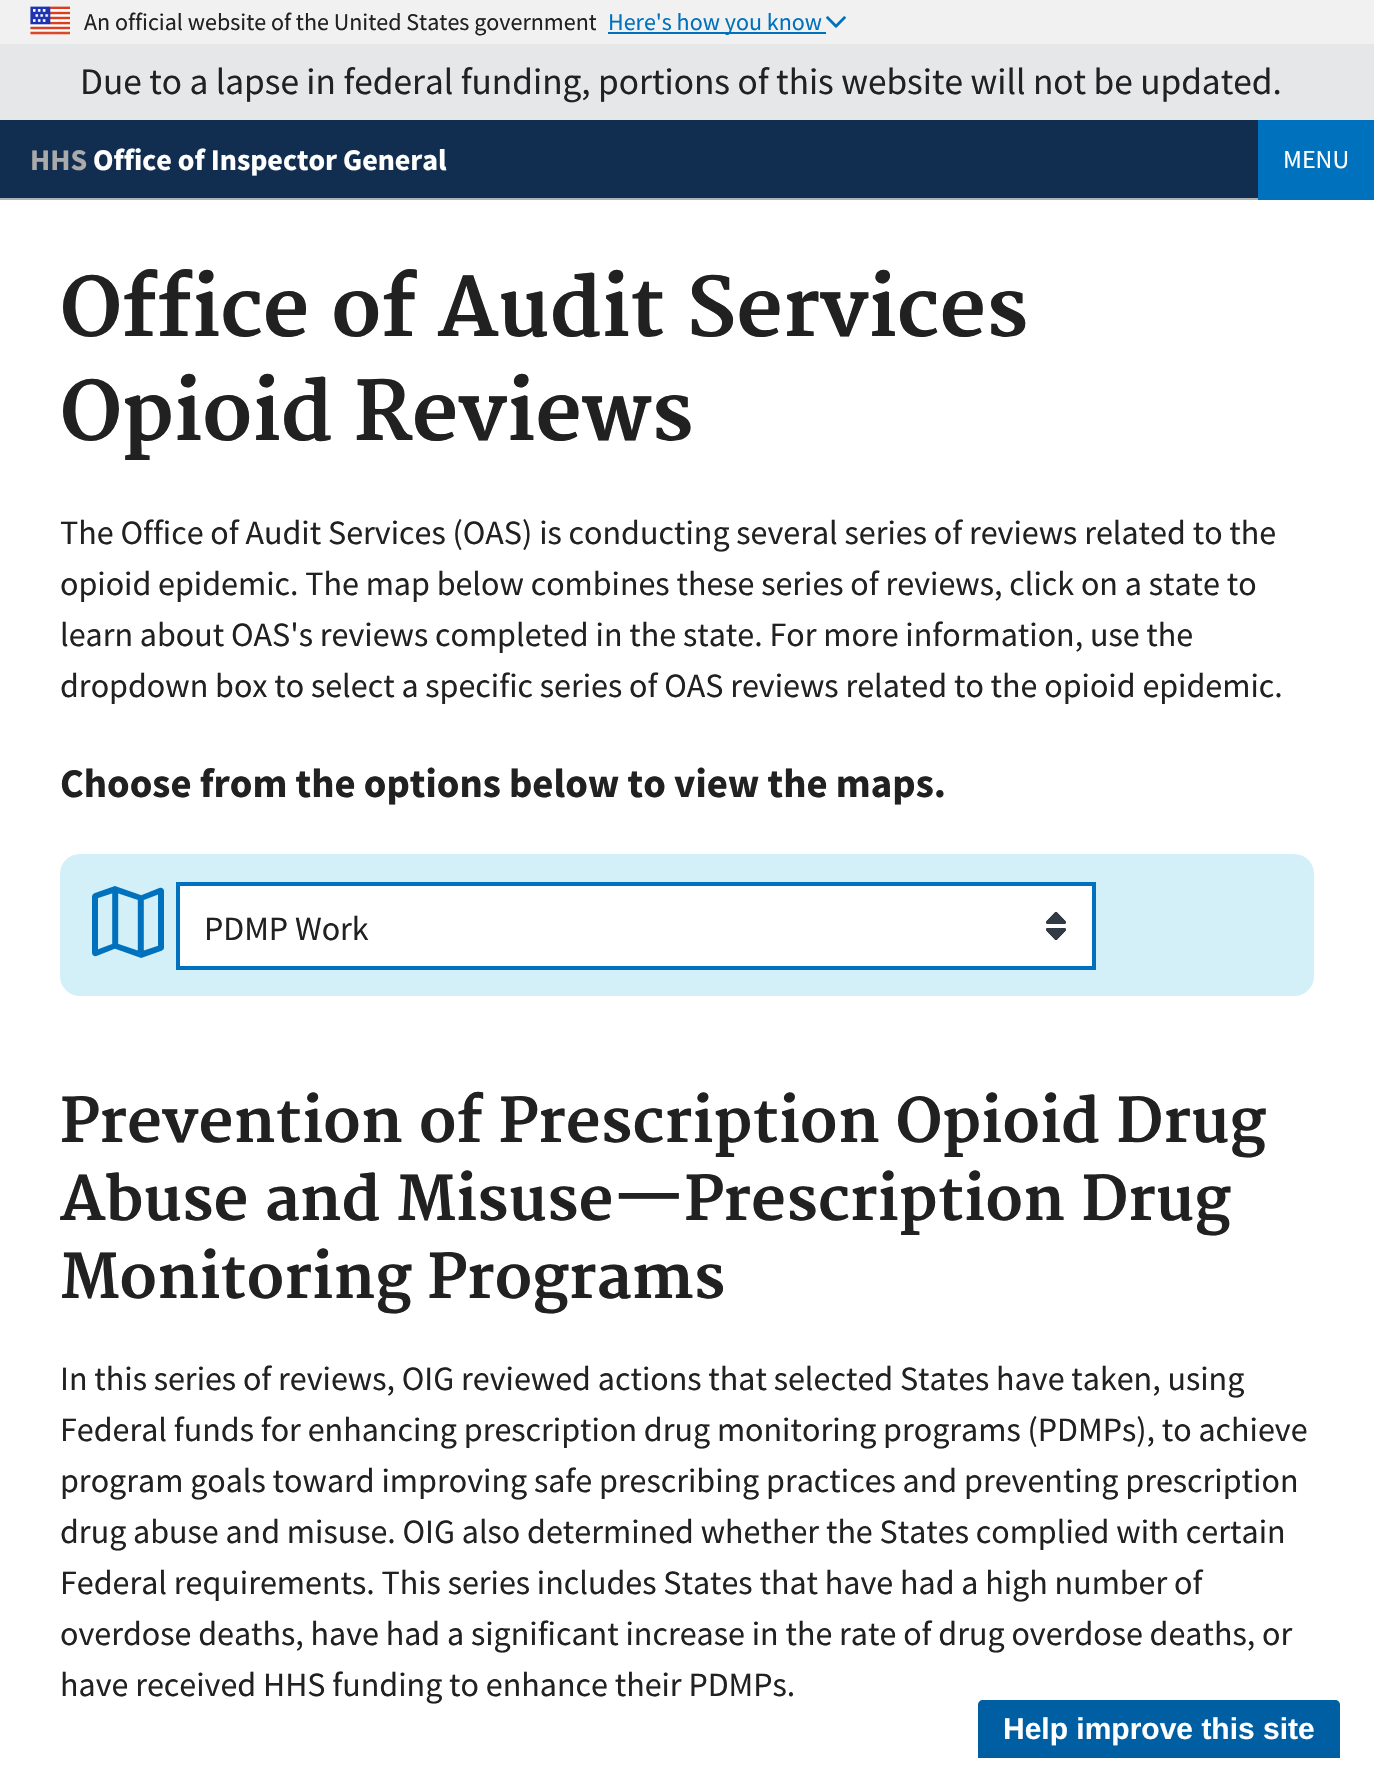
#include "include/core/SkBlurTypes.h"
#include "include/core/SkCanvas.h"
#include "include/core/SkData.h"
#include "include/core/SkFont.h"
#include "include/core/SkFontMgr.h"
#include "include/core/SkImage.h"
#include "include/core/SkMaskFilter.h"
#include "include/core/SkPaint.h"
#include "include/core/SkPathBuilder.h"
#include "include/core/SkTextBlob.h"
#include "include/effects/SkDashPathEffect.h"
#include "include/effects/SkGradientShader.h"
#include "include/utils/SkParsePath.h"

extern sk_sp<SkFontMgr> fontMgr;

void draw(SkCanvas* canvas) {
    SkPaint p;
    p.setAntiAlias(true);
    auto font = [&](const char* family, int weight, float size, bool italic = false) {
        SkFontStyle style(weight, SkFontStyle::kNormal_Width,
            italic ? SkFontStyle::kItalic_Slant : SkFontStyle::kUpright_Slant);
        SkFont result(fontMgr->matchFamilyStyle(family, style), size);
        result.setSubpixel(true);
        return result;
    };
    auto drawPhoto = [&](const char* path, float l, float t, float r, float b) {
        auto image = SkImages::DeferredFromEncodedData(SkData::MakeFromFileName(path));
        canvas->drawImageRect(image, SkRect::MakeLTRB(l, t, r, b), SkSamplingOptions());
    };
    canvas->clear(0xFFFFFFFF);
    p.setColor(0xFFF1F1F1);
    canvas->drawRect(SkRect::MakeLTRB(0, 0, 1374, 44), p);
    drawPhoto("media/1.png", 30, 6, 70, 35);
    canvas->save();
    canvas->clipRect(SkRect::MakeLTRB(84, 4, 596, 40));
    auto font1 = font("Source Sans Pro", 400, 24);
    p.setColor(0xFF212121);
    canvas->drawString("An official website of the United States government", 84, 30, font1, p);
    canvas->restore();
    p.setColor(0xFF0071BC);
    canvas->drawRect(SkRect::MakeLTRB(608, 32, 826, 34), p);
    canvas->drawString("Here's how you know", 608, 30, font1, p);
    drawPhoto("media/2.png", 826, 16, 846, 28);
    p.setColor(0xFFE6E7E8);
    canvas->drawRect(SkRect::MakeLTRB(0, 44, 1374, 120), p);
    auto font2 = font("Source Sans Pro", 400, 37.3f);
    p.setColor(0xFF212121);
    canvas->drawString("Due to a lapse in federal funding, portions of this website will not be updated.", 80, 94, font2, p);
    p.setColor(0xFF112E51);
    canvas->drawRect(SkRect::MakeLTRB(0, 120, 1258, 198), p);
    p.setColor(0xFFAEB0B5);
    canvas->drawRect(SkRect::MakeLTRB(0, 198, 1258, 200), p);
    auto font3 = font("Source Sans Pro", 700, 30);
    p.setColor(0xFFAAAAAA);
    canvas->drawString("HHS", 30, 170, font3, p);
    p.setColor(0xFFFFFFFF);
    canvas->drawString("Office of Inspector General", 93, 170, font3, p);
    p.setColor(0xFF0071BC);
    canvas->drawRect(SkRect::MakeLTRB(1258, 120, 1374, 200), p);
    auto font4 = font("Source Sans Pro", 400, 26);
    p.setColor(0xFFFFFFFF);
    canvas->drawString("MENU", 1283, 168, font4, p);
    auto font5 = font("Merriweather", 700, 80);
    p.setColor(0xFF212121);
    canvas->drawString("Office of Audit Services", 60, 336, font5, p);
    canvas->drawString("Opioid Reviews", 60, 440, font5, p);
    auto font6 = font("Source Sans Pro", 400, 34);
    {
        const struct { const char* s; float x, y; } items[] = {
            {"The Office of Audit Services (OAS) is conducting several series of reviews related to the", 60, 544},
            {"opioid epidemic. The map below combines these series of reviews, click on a state to", 60, 595},
            {"learn about OAS's reviews completed in the state. For more information, use the", 60, 646},
            {"dropdown box to select a specific series of OAS reviews related to the opioid epidemic.", 60, 697},
        };
        for (auto [s, x, y] : items) {
            canvas->drawString(s, x, y, font6, p);
        }
    }
    auto font7 = font("Source Sans Pro", 700, 40.8f);
    canvas->drawString("Choose from the options below to view the maps.", 60, 797, font7, p);
    p.setColor(0xFFD3EFF8);
    canvas->drawRoundRect(SkRect::MakeLTRB(60, 854, 1314, 996), 20, 20, p);
    drawPhoto("media/3.png", 92, 886, 164, 958);
    p.setColor(0xFFFFFFFF);
    canvas->drawRect(SkRect::MakeLTRB(180, 886, 1092, 966), p);
    drawPhoto("media/4.png", 1046, 912, 1066, 940);
    p.setStyle(SkPaint::kStroke_Style);
    p.setStrokeWidth(4);
    p.setColor(0xFF0071BC);
    canvas->drawRect(SkRect::MakeLTRB(178, 884, 1094, 968), p);
    p.setStyle(SkPaint::kFill_Style);
    p.setColor(0xFF212121);
    canvas->drawString("PDMP Work", 204, 940, font6, p);
    auto font8 = font("Merriweather", 700, 60);
    {
        const struct { const char* s; float x, y; } items[] = {
            {"Prevention of Prescription Opioid Drug", 60, 1142},
            {"Abuse and Misuse—Prescription Drug", 60, 1220},
            {"Monitoring Programs", 60, 1298},
        };
        for (auto [s, x, y] : items) {
            canvas->drawString(s, x, y, font8, p);
        }
    }
    {
        const struct { const char* s; float x, y; } items[] = {
            {"In this series of reviews, OIG reviewed actions that selected States have taken, using", 60, 1390},
            {"Federal funds for enhancing prescription drug monitoring programs (PDMPs), to achieve", 60, 1441},
            {"program goals toward improving safe prescribing practices and preventing prescription", 60, 1492},
            {"drug abuse and misuse. OIG also determined whether the States complied with certain", 60, 1543},
            {"Federal requirements. This series includes States that have had a high number of", 60, 1594},
            {"overdose deaths, have had a significant increase in the rate of drug overdose deaths, or", 60, 1645},
            {"have received HHS funding to enhance their PDMPs.", 60, 1696},
        };
        for (auto [s, x, y] : items) {
            canvas->drawString(s, x, y, font6, p);
        }
    }
    p.setColor(0xFF005EA2);
    canvas->drawPath(SkPathBuilder().moveTo(983, 1700).lineTo(1335, 1700).cubicTo(1338, 1700, 1340, 1702, 1340, 1705).lineTo(1340, 1758).lineTo(978, 1758).lineTo(978, 1705).cubicTo(978, 1702, 980, 1700, 983, 1700).close().detach(), p);
    auto font9 = font("Liberation Sans", 700, 30);
    p.setColor(0xFFFFFFFF);
    canvas->drawString("Help improve this site", 1003, 1739, font9, p);
}
